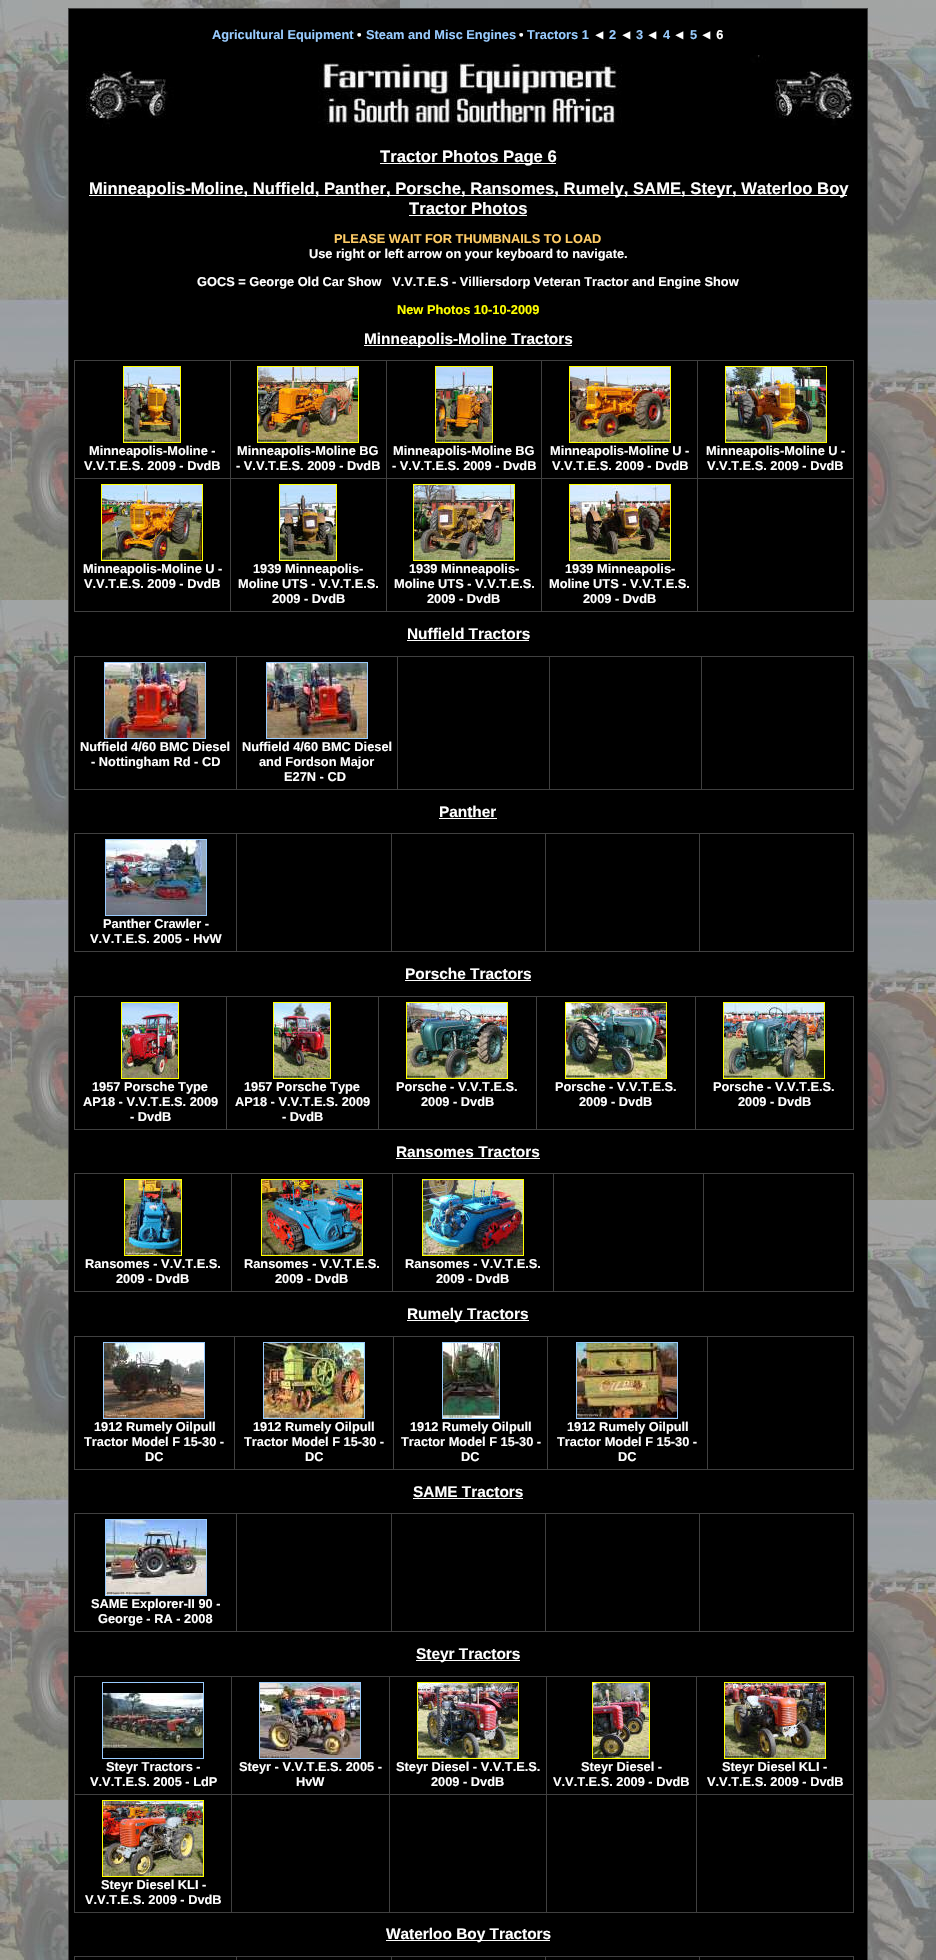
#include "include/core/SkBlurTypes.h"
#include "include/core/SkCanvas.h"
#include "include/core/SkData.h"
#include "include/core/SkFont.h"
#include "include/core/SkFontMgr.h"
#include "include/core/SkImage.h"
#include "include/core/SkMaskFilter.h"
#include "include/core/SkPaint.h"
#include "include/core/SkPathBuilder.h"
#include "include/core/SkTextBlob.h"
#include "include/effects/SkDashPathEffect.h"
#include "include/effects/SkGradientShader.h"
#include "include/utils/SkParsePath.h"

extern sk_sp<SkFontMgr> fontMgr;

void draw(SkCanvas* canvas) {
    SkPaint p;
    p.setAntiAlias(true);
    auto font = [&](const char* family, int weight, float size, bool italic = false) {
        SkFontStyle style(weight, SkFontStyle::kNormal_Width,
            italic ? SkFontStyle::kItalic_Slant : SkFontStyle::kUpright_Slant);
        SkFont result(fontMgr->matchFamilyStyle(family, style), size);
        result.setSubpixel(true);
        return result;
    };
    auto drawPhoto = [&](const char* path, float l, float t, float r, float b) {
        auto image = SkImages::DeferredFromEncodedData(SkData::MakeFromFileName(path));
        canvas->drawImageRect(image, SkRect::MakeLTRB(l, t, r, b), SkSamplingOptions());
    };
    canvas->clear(0xFFFFFFFF);
    drawPhoto("media/1.png", 0, 0, 936, 1960);
    {
        const struct { float l, t, r, b; SkColor color; } items[] = {
            {69, 9, 867, 1960, 0xFF000000},
            {68, 8, 868, 9, 0xFF404040},
            {867, 8, 868, 1960, 0xFF404040},
            {68, 8, 69, 1960, 0xFF404040},
        };
        for (auto [l, t, r, b, color] : items) {
            p.setColor(color);
            canvas->drawRect(SkRect::MakeLTRB(l, t, r, b), p);
        }
    }
    auto font1 = font("Liberation Sans", 700, 12.8f);
    p.setColor(0xFF99CCFF);
    canvas->drawString("Agricultural Equipment", 212, 39, font1, p);
    p.setColor(0xFFFFFFFF);
    canvas->drawString("•", 357, 39, font1, p);
    p.setColor(0xFF99CCFF);
    canvas->drawString("Steam and Misc Engines", 366, 39, font1, p);
    p.setColor(0xFFFFFFFF);
    canvas->drawString("•", 519, 39, font1, p);
    p.setColor(0xFF99CCFF);
    canvas->drawString("Tractors 1", 527, 39, font1, p);
    p.setColor(0xFFFFFFFF);
    canvas->drawString("◄", 593, 39, font1, p);
    p.setColor(0xFF99CCFF);
    canvas->drawString("2", 609, 39, font1, p);
    p.setColor(0xFFFFFFFF);
    canvas->drawString("◄", 620, 39, font1, p);
    p.setColor(0xFF99CCFF);
    canvas->drawString("3", 636, 39, font1, p);
    p.setColor(0xFFFFFFFF);
    canvas->drawString("◄", 646, 39, font1, p);
    p.setColor(0xFF99CCFF);
    canvas->drawString("4", 663, 39, font1, p);
    p.setColor(0xFFFFFFFF);
    canvas->drawString("◄", 673, 39, font1, p);
    p.setColor(0xFF99CCFF);
    canvas->drawString("5", 690, 39, font1, p);
    p.setColor(0xFFFFFFFF);
    canvas->drawString("◄ 6", 700, 39, font1, p);
    drawPhoto("media/2.png", 86, 55, 854, 127);
    canvas->drawRect(SkRect::MakeLTRB(380, 163, 556, 164), p);
    auto font2 = font("Liberation Sans", 700, 16.65f);
    canvas->drawString("Tractor Photos Page 6", 380, 162, font2, p);
    canvas->drawRect(SkRect::MakeLTRB(89, 195, 847, 196), p);
    canvas->drawString("Minneapolis-Moline, Nuffield, Panther, Porsche, Ransomes, Rumely, SAME, Steyr, Waterloo Boy", 89, 194, font2, p);
    canvas->drawString("Tractor Photos", 409, 214, font2, p);
    canvas->drawRect(SkRect::MakeLTRB(409, 215, 527, 216), p);
    p.setColor(0xFFFFCC66);
    canvas->drawString("PLEASE WAIT FOR THUMBNAILS TO LOAD", 334, 243, font1, p);
    p.setColor(0xFFFFFFFF);
    canvas->drawString("Use right or left arrow on your keyboard to navigate.", 309, 258, font1, p);
    canvas->drawString("GOCS = George Old Car Show   V.V.T.E.S - Villiersdorp Veteran Tractor and Engine Show", 197, 286, font1, p);
    p.setColor(0xFFFFFF00);
    canvas->drawString("New Photos 10-10-2009", 397, 314, font1, p);
    p.setColor(0xFFFFFFFF);
    canvas->drawRect(SkRect::MakeLTRB(364, 345, 572, 346), p);
    auto font3 = font("Liberation Sans", 700, 15.4f);
    canvas->drawString("Minneapolis-Moline Tractors", 364, 344, font3, p);
    {
        const struct { float l, t, r, b; SkColor color; } items[] = {
            {74, 360, 854, 361, 0xFF404040},
            {853, 360, 854, 612, 0xFF404040},
            {74, 611, 854, 612, 0xFF404040},
            {74, 360, 75, 612, 0xFF404040},
        };
        for (auto [l, t, r, b, color] : items) {
            p.setColor(color);
            canvas->drawRect(SkRect::MakeLTRB(l, t, r, b), p);
        }
    }
    p.setStyle(SkPaint::kStroke_Style);
    p.setStrokeWidth(1);
    p.setColor(0xFFFFFF00);
    canvas->drawRect(SkRect::MakeLTRB(123.5f, 366.5f, 180.5f, 442.5f), p);
    drawPhoto("media/3.png", 124, 367, 180, 442);
    p.setStyle(SkPaint::kFill_Style);
    p.setColor(0xFFFFFFFF);
    canvas->drawString("Minneapolis-Moline -", 89, 455, font1, p);
    canvas->drawString("V.V.T.E.S. 2009 - DvdB", 84, 470, font1, p);
    {
        const struct { float l, t, r, b; SkColor color; } items[] = {
            {697, 478, 854, 479, 0xFF404040},
            {697, 478, 698, 612, 0xFF404040},
            {541, 478, 698, 479, 0xFF404040},
            {541, 478, 542, 612, 0xFF404040},
            {386, 478, 542, 479, 0xFF404040},
            {386, 478, 387, 612, 0xFF404040},
            {230, 478, 387, 479, 0xFF404040},
            {230, 478, 231, 612, 0xFF404040},
            {74, 478, 231, 479, 0xFF404040},
            {230, 360, 231, 479, 0xFF404040},
        };
        for (auto [l, t, r, b, color] : items) {
            p.setColor(color);
            canvas->drawRect(SkRect::MakeLTRB(l, t, r, b), p);
        }
    }
    p.setStyle(SkPaint::kStroke_Style);
    p.setColor(0xFFFFFF00);
    canvas->drawRect(SkRect::MakeLTRB(257.5f, 366.5f, 358.5f, 442.5f), p);
    drawPhoto("media/4.png", 258, 367, 358, 442);
    p.setStyle(SkPaint::kFill_Style);
    p.setColor(0xFFFFFFFF);
    canvas->drawString("Minneapolis-Moline BG", 237, 455, font1, p);
    canvas->drawString("- V.V.T.E.S. 2009 - DvdB", 236, 470, font1, p);
    p.setColor(0xFF404040);
    canvas->drawRect(SkRect::MakeLTRB(386, 360, 387, 479), p);
    p.setStyle(SkPaint::kStroke_Style);
    p.setColor(0xFFFFFF00);
    canvas->drawRect(SkRect::MakeLTRB(435.5f, 366.5f, 492.5f, 442.5f), p);
    drawPhoto("media/5.png", 436, 367, 492, 442);
    p.setStyle(SkPaint::kFill_Style);
    p.setColor(0xFFFFFFFF);
    canvas->drawString("Minneapolis-Moline BG", 393, 455, font1, p);
    canvas->drawString("- V.V.T.E.S. 2009 - DvdB", 392, 470, font1, p);
    p.setColor(0xFF404040);
    canvas->drawRect(SkRect::MakeLTRB(541, 360, 542, 479), p);
    p.setStyle(SkPaint::kStroke_Style);
    p.setColor(0xFFFFFF00);
    canvas->drawRect(SkRect::MakeLTRB(569.5f, 366.5f, 670.5f, 442.5f), p);
    drawPhoto("media/6.png", 570, 367, 670, 442);
    p.setStyle(SkPaint::kFill_Style);
    p.setColor(0xFFFFFFFF);
    canvas->drawString("Minneapolis-Moline U -", 550, 455, font1, p);
    canvas->drawString("V.V.T.E.S. 2009 - DvdB", 552, 470, font1, p);
    p.setColor(0xFF404040);
    canvas->drawRect(SkRect::MakeLTRB(697, 360, 698, 479), p);
    p.setStyle(SkPaint::kStroke_Style);
    p.setColor(0xFFFFFF00);
    canvas->drawRect(SkRect::MakeLTRB(725.5f, 366.5f, 826.5f, 442.5f), p);
    drawPhoto("media/7.png", 726, 367, 826, 442);
    p.setStyle(SkPaint::kFill_Style);
    p.setColor(0xFFFFFFFF);
    canvas->drawString("Minneapolis-Moline U -", 706, 455, font1, p);
    canvas->drawString("V.V.T.E.S. 2009 - DvdB", 707, 470, font1, p);
    p.setStyle(SkPaint::kStroke_Style);
    p.setColor(0xFFFFFF00);
    canvas->drawRect(SkRect::MakeLTRB(101.5f, 484.5f, 202.5f, 560.5f), p);
    drawPhoto("media/8.png", 102, 485, 202, 560);
    p.setStyle(SkPaint::kFill_Style);
    p.setColor(0xFFFFFFFF);
    canvas->drawString("Minneapolis-Moline U -", 83, 573, font1, p);
    canvas->drawString("V.V.T.E.S. 2009 - DvdB", 84, 588, font1, p);
    p.setStyle(SkPaint::kStroke_Style);
    p.setColor(0xFFFFFF00);
    canvas->drawRect(SkRect::MakeLTRB(279.5f, 484.5f, 336.5f, 560.5f), p);
    drawPhoto("media/9.png", 280, 485, 336, 560);
    p.setStyle(SkPaint::kFill_Style);
    p.setColor(0xFFFFFFFF);
    {
        const struct { const char* s; float x, y; } items[] = {
            {"1939 Minneapolis-", 253, 573},
            {"Moline UTS - V.V.T.E.S.", 238, 588},
            {"2009 - DvdB", 272, 603},
        };
        for (auto [s, x, y] : items) {
            canvas->drawString(s, x, y, font1, p);
        }
    }
    p.setStyle(SkPaint::kStroke_Style);
    p.setColor(0xFFFFFF00);
    canvas->drawRect(SkRect::MakeLTRB(413.5f, 484.5f, 514.5f, 560.5f), p);
    drawPhoto("media/10.png", 414, 485, 514, 560);
    p.setStyle(SkPaint::kFill_Style);
    p.setColor(0xFFFFFFFF);
    {
        const struct { const char* s; float x, y; } items[] = {
            {"1939 Minneapolis-", 409, 573},
            {"Moline UTS - V.V.T.E.S.", 394, 588},
            {"2009 - DvdB", 427, 603},
        };
        for (auto [s, x, y] : items) {
            canvas->drawString(s, x, y, font1, p);
        }
    }
    p.setStyle(SkPaint::kStroke_Style);
    p.setColor(0xFFFFFF00);
    canvas->drawRect(SkRect::MakeLTRB(569.5f, 484.5f, 670.5f, 560.5f), p);
    drawPhoto("media/11.png", 570, 485, 670, 560);
    p.setStyle(SkPaint::kFill_Style);
    p.setColor(0xFFFFFFFF);
    {
        const struct { const char* s; float x, y; } items[] = {
            {"1939 Minneapolis-", 565, 573},
            {"Moline UTS - V.V.T.E.S.", 549, 588},
            {"2009 - DvdB", 583, 603},
        };
        for (auto [s, x, y] : items) {
            canvas->drawString(s, x, y, font1, p);
        }
    }
    canvas->drawString("Nuffield Tractors", 407, 639, font3, p);
    {
        const struct { float l, t, r, b; SkColor color; } items[] = {
            {407, 640, 529, 641, 0xFFFFFFFF},
            {74, 656, 854, 657, 0xFF404040},
            {853, 656, 854, 790, 0xFF404040},
            {74, 789, 854, 790, 0xFF404040},
            {74, 656, 75, 790, 0xFF404040},
        };
        for (auto [l, t, r, b, color] : items) {
            p.setColor(color);
            canvas->drawRect(SkRect::MakeLTRB(l, t, r, b), p);
        }
    }
    p.setStyle(SkPaint::kStroke_Style);
    p.setColor(0xFF99CCFF);
    canvas->drawRect(SkRect::MakeLTRB(104.5f, 662.5f, 205.5f, 738.5f), p);
    drawPhoto("media/12.png", 105, 663, 205, 738);
    p.setStyle(SkPaint::kFill_Style);
    p.setColor(0xFFFFFFFF);
    canvas->drawString("Nuffield 4/60 BMC Diesel", 80, 751, font1, p);
    canvas->drawString("- Nottingham Rd - CD", 91, 766, font1, p);
    p.setColor(0xFF404040);
    canvas->drawRect(SkRect::MakeLTRB(236, 656, 237, 790), p);
    p.setStyle(SkPaint::kStroke_Style);
    p.setColor(0xFF99CCFF);
    canvas->drawRect(SkRect::MakeLTRB(266.5f, 662.5f, 367.5f, 738.5f), p);
    drawPhoto("media/13.png", 267, 663, 367, 738);
    p.setStyle(SkPaint::kFill_Style);
    p.setColor(0xFFFFFFFF);
    {
        const struct { const char* s; float x, y; } items[] = {
            {"Nuffield 4/60 BMC Diesel", 242, 751},
            {"and Fordson Major", 259, 766},
            {"E27N - CD", 284, 781},
        };
        for (auto [s, x, y] : items) {
            canvas->drawString(s, x, y, font1, p);
        }
    }
    {
        const struct { float l, t, r, b; SkColor color; } items[] = {
            {397, 656, 398, 790, 0xFF404040},
            {549, 656, 550, 790, 0xFF404040},
            {701, 656, 702, 790, 0xFF404040},
        };
        for (auto [l, t, r, b, color] : items) {
            p.setColor(color);
            canvas->drawRect(SkRect::MakeLTRB(l, t, r, b), p);
        }
    }
    p.setColor(0xFFFFFFFF);
    canvas->drawString("Panther", 439, 817, font3, p);
    {
        const struct { float l, t, r, b; SkColor color; } items[] = {
            {439, 818, 497, 819, 0xFFFFFFFF},
            {74, 833, 854, 834, 0xFF404040},
            {853, 833, 854, 952, 0xFF404040},
            {74, 951, 854, 952, 0xFF404040},
            {74, 833, 75, 952, 0xFF404040},
        };
        for (auto [l, t, r, b, color] : items) {
            p.setColor(color);
            canvas->drawRect(SkRect::MakeLTRB(l, t, r, b), p);
        }
    }
    p.setStyle(SkPaint::kStroke_Style);
    p.setColor(0xFF99CCFF);
    canvas->drawRect(SkRect::MakeLTRB(105.5f, 839.5f, 206.5f, 915.5f), p);
    drawPhoto("media/14.png", 106, 840, 206, 915);
    p.setStyle(SkPaint::kFill_Style);
    p.setColor(0xFFFFFFFF);
    canvas->drawString("Panther Crawler -", 103, 928, font1, p);
    canvas->drawString("V.V.T.E.S. 2005 - HvW", 90, 943, font1, p);
    {
        const struct { float l, t, r, b; SkColor color; } items[] = {
            {236, 833, 237, 952, 0xFF404040},
            {391, 833, 392, 952, 0xFF404040},
            {545, 833, 546, 952, 0xFF404040},
            {699, 833, 700, 952, 0xFF404040},
        };
        for (auto [l, t, r, b, color] : items) {
            p.setColor(color);
            canvas->drawRect(SkRect::MakeLTRB(l, t, r, b), p);
        }
    }
    p.setColor(0xFFFFFFFF);
    canvas->drawString("Porsche Tractors", 405, 979, font3, p);
    {
        const struct { float l, t, r, b; SkColor color; } items[] = {
            {405, 980, 531, 981, 0xFFFFFFFF},
            {74, 996, 854, 997, 0xFF404040},
            {853, 996, 854, 1130, 0xFF404040},
            {74, 1129, 854, 1130, 0xFF404040},
            {74, 996, 75, 1130, 0xFF404040},
        };
        for (auto [l, t, r, b, color] : items) {
            p.setColor(color);
            canvas->drawRect(SkRect::MakeLTRB(l, t, r, b), p);
        }
    }
    p.setStyle(SkPaint::kStroke_Style);
    p.setColor(0xFFFFFF00);
    canvas->drawRect(SkRect::MakeLTRB(121.5f, 1002.5f, 178.5f, 1078.5f), p);
    drawPhoto("media/15.png", 122, 1003, 178, 1078);
    p.setStyle(SkPaint::kFill_Style);
    p.setColor(0xFFFFFFFF);
    {
        const struct { const char* s; float x, y; } items[] = {
            {"1957 Porsche Type", 92, 1091},
            {"AP18 - V.V.T.E.S. 2009", 83, 1106},
            {"- DvdB", 130, 1121},
        };
        for (auto [s, x, y] : items) {
            canvas->drawString(s, x, y, font1, p);
        }
    }
    p.setColor(0xFF404040);
    canvas->drawRect(SkRect::MakeLTRB(226, 996, 227, 1130), p);
    p.setStyle(SkPaint::kStroke_Style);
    p.setColor(0xFFFFFF00);
    canvas->drawRect(SkRect::MakeLTRB(273.5f, 1002.5f, 330.5f, 1078.5f), p);
    drawPhoto("media/16.png", 274, 1003, 330, 1078);
    p.setStyle(SkPaint::kFill_Style);
    p.setColor(0xFFFFFFFF);
    {
        const struct { const char* s; float x, y; } items[] = {
            {"1957 Porsche Type", 244, 1091},
            {"AP18 - V.V.T.E.S. 2009", 235, 1106},
            {"- DvdB", 282, 1121},
        };
        for (auto [s, x, y] : items) {
            canvas->drawString(s, x, y, font1, p);
        }
    }
    p.setColor(0xFF404040);
    canvas->drawRect(SkRect::MakeLTRB(378, 996, 379, 1130), p);
    p.setStyle(SkPaint::kStroke_Style);
    p.setColor(0xFFFFFF00);
    canvas->drawRect(SkRect::MakeLTRB(406.5f, 1002.5f, 507.5f, 1078.5f), p);
    drawPhoto("media/17.png", 407, 1003, 507, 1078);
    p.setStyle(SkPaint::kFill_Style);
    p.setColor(0xFFFFFFFF);
    canvas->drawString("Porsche - V.V.T.E.S.", 396, 1091, font1, p);
    canvas->drawString("2009 - DvdB", 421, 1106, font1, p);
    p.setColor(0xFF404040);
    canvas->drawRect(SkRect::MakeLTRB(536, 996, 537, 1130), p);
    p.setStyle(SkPaint::kStroke_Style);
    p.setColor(0xFFFFFF00);
    canvas->drawRect(SkRect::MakeLTRB(565.5f, 1002.5f, 666.5f, 1078.5f), p);
    drawPhoto("media/18.png", 566, 1003, 666, 1078);
    p.setStyle(SkPaint::kFill_Style);
    p.setColor(0xFFFFFFFF);
    canvas->drawString("Porsche - V.V.T.E.S.", 555, 1091, font1, p);
    canvas->drawString("2009 - DvdB", 579, 1106, font1, p);
    p.setColor(0xFF404040);
    canvas->drawRect(SkRect::MakeLTRB(695, 996, 696, 1130), p);
    p.setStyle(SkPaint::kStroke_Style);
    p.setColor(0xFFFFFF00);
    canvas->drawRect(SkRect::MakeLTRB(723.5f, 1002.5f, 824.5f, 1078.5f), p);
    drawPhoto("media/19.png", 724, 1003, 824, 1078);
    p.setStyle(SkPaint::kFill_Style);
    p.setColor(0xFFFFFFFF);
    canvas->drawString("Porsche - V.V.T.E.S.", 713, 1091, font1, p);
    canvas->drawString("2009 - DvdB", 738, 1106, font1, p);
    canvas->drawString("Ransomes Tractors", 396, 1157, font3, p);
    {
        const struct { float l, t, r, b; SkColor color; } items[] = {
            {396, 1158, 540, 1159, 0xFFFFFFFF},
            {74, 1173, 854, 1174, 0xFF404040},
            {853, 1173, 854, 1292, 0xFF404040},
            {74, 1291, 854, 1292, 0xFF404040},
            {74, 1173, 75, 1292, 0xFF404040},
        };
        for (auto [l, t, r, b, color] : items) {
            p.setColor(color);
            canvas->drawRect(SkRect::MakeLTRB(l, t, r, b), p);
        }
    }
    p.setStyle(SkPaint::kStroke_Style);
    p.setColor(0xFFFFFF00);
    canvas->drawRect(SkRect::MakeLTRB(124.5f, 1179.5f, 181.5f, 1255.5f), p);
    drawPhoto("media/20.png", 125, 1180, 181, 1255);
    p.setStyle(SkPaint::kFill_Style);
    p.setColor(0xFFFFFFFF);
    canvas->drawString("Ransomes - V.V.T.E.S.", 85, 1268, font1, p);
    canvas->drawString("2009 - DvdB", 116, 1283, font1, p);
    p.setColor(0xFF404040);
    canvas->drawRect(SkRect::MakeLTRB(231, 1173, 232, 1292), p);
    p.setStyle(SkPaint::kStroke_Style);
    p.setColor(0xFFFFFF00);
    canvas->drawRect(SkRect::MakeLTRB(261.5f, 1179.5f, 362.5f, 1255.5f), p);
    drawPhoto("media/21.png", 262, 1180, 362, 1255);
    p.setStyle(SkPaint::kFill_Style);
    p.setColor(0xFFFFFFFF);
    canvas->drawString("Ransomes - V.V.T.E.S.", 244, 1268, font1, p);
    canvas->drawString("2009 - DvdB", 275, 1283, font1, p);
    p.setColor(0xFF404040);
    canvas->drawRect(SkRect::MakeLTRB(392, 1173, 393, 1292), p);
    p.setStyle(SkPaint::kStroke_Style);
    p.setColor(0xFFFFFF00);
    canvas->drawRect(SkRect::MakeLTRB(422.5f, 1179.5f, 523.5f, 1255.5f), p);
    drawPhoto("media/22.png", 423, 1180, 523, 1255);
    p.setStyle(SkPaint::kFill_Style);
    p.setColor(0xFFFFFFFF);
    canvas->drawString("Ransomes - V.V.T.E.S.", 405, 1268, font1, p);
    canvas->drawString("2009 - DvdB", 436, 1283, font1, p);
    {
        const struct { float l, t, r, b; SkColor color; } items[] = {
            {553, 1173, 554, 1292, 0xFF404040},
            {703, 1173, 704, 1292, 0xFF404040},
            {407, 1320, 529, 1321, 0xFFFFFFFF},
        };
        for (auto [l, t, r, b, color] : items) {
            p.setColor(color);
            canvas->drawRect(SkRect::MakeLTRB(l, t, r, b), p);
        }
    }
    canvas->drawString("Rumely Tractors", 407, 1319, font3, p);
    {
        const struct { float l, t, r, b; SkColor color; } items[] = {
            {74, 1336, 854, 1337, 0xFF404040},
            {853, 1336, 854, 1470, 0xFF404040},
            {74, 1469, 854, 1470, 0xFF404040},
            {74, 1336, 75, 1470, 0xFF404040},
        };
        for (auto [l, t, r, b, color] : items) {
            p.setColor(color);
            canvas->drawRect(SkRect::MakeLTRB(l, t, r, b), p);
        }
    }
    p.setStyle(SkPaint::kStroke_Style);
    p.setColor(0xFF99CCFF);
    canvas->drawRect(SkRect::MakeLTRB(103.5f, 1342.5f, 204.5f, 1418.5f), p);
    drawPhoto("media/23.png", 104, 1343, 204, 1418);
    p.setStyle(SkPaint::kFill_Style);
    p.setColor(0xFFFFFFFF);
    {
        const struct { const char* s; float x, y; } items[] = {
            {"1912 Rumely Oilpull", 94, 1431},
            {"Tractor Model F 15-30 -", 84, 1446},
            {"DC", 145, 1461},
        };
        for (auto [s, x, y] : items) {
            canvas->drawString(s, x, y, font1, p);
        }
    }
    p.setColor(0xFF404040);
    canvas->drawRect(SkRect::MakeLTRB(234, 1336, 235, 1470), p);
    p.setStyle(SkPaint::kStroke_Style);
    p.setColor(0xFF99CCFF);
    canvas->drawRect(SkRect::MakeLTRB(263.5f, 1342.5f, 364.5f, 1418.5f), p);
    drawPhoto("media/24.png", 264, 1343, 364, 1418);
    p.setStyle(SkPaint::kFill_Style);
    p.setColor(0xFFFFFFFF);
    {
        const struct { const char* s; float x, y; } items[] = {
            {"1912 Rumely Oilpull", 253, 1431},
            {"Tractor Model F 15-30 -", 244, 1446},
            {"DC", 305, 1461},
        };
        for (auto [s, x, y] : items) {
            canvas->drawString(s, x, y, font1, p);
        }
    }
    p.setColor(0xFF404040);
    canvas->drawRect(SkRect::MakeLTRB(393, 1336, 394, 1470), p);
    p.setStyle(SkPaint::kStroke_Style);
    p.setColor(0xFF99CCFF);
    canvas->drawRect(SkRect::MakeLTRB(442.5f, 1342.5f, 499.5f, 1418.5f), p);
    drawPhoto("media/25.png", 443, 1343, 499, 1418);
    p.setStyle(SkPaint::kFill_Style);
    p.setColor(0xFFFFFFFF);
    {
        const struct { const char* s; float x, y; } items[] = {
            {"1912 Rumely Oilpull", 410, 1431},
            {"Tractor Model F 15-30 -", 401, 1446},
            {"DC", 461, 1461},
        };
        for (auto [s, x, y] : items) {
            canvas->drawString(s, x, y, font1, p);
        }
    }
    p.setColor(0xFF404040);
    canvas->drawRect(SkRect::MakeLTRB(547, 1336, 548, 1470), p);
    p.setStyle(SkPaint::kStroke_Style);
    p.setColor(0xFF99CCFF);
    canvas->drawRect(SkRect::MakeLTRB(576.5f, 1342.5f, 677.5f, 1418.5f), p);
    drawPhoto("media/26.png", 577, 1343, 677, 1418);
    p.setStyle(SkPaint::kFill_Style);
    p.setColor(0xFFFFFFFF);
    {
        const struct { const char* s; float x, y; } items[] = {
            {"1912 Rumely Oilpull", 567, 1431},
            {"Tractor Model F 15-30 -", 557, 1446},
            {"DC", 618, 1461},
        };
        for (auto [s, x, y] : items) {
            canvas->drawString(s, x, y, font1, p);
        }
    }
    p.setColor(0xFF404040);
    canvas->drawRect(SkRect::MakeLTRB(707, 1336, 708, 1470), p);
    p.setColor(0xFFFFFFFF);
    canvas->drawString("SAME Tractors", 413, 1497, font3, p);
    {
        const struct { float l, t, r, b; SkColor color; } items[] = {
            {413, 1498, 523, 1499, 0xFFFFFFFF},
            {74, 1513, 854, 1514, 0xFF404040},
            {853, 1513, 854, 1632, 0xFF404040},
            {74, 1631, 854, 1632, 0xFF404040},
            {74, 1513, 75, 1632, 0xFF404040},
        };
        for (auto [l, t, r, b, color] : items) {
            p.setColor(color);
            canvas->drawRect(SkRect::MakeLTRB(l, t, r, b), p);
        }
    }
    p.setStyle(SkPaint::kStroke_Style);
    p.setColor(0xFF99CCFF);
    canvas->drawRect(SkRect::MakeLTRB(105.5f, 1519.5f, 206.5f, 1595.5f), p);
    drawPhoto("media/27.png", 106, 1520, 206, 1595);
    p.setStyle(SkPaint::kFill_Style);
    p.setColor(0xFFFFFFFF);
    canvas->drawString("SAME Explorer-II 90 -", 91, 1608, font1, p);
    canvas->drawString("George - RA - 2008", 98, 1623, font1, p);
    {
        const struct { float l, t, r, b; SkColor color; } items[] = {
            {236, 1513, 237, 1632, 0xFF404040},
            {391, 1513, 392, 1632, 0xFF404040},
            {545, 1513, 546, 1632, 0xFF404040},
            {699, 1513, 700, 1632, 0xFF404040},
            {416, 1660, 520, 1661, 0xFFFFFFFF},
        };
        for (auto [l, t, r, b, color] : items) {
            p.setColor(color);
            canvas->drawRect(SkRect::MakeLTRB(l, t, r, b), p);
        }
    }
    canvas->drawString("Steyr Tractors", 416, 1659, font3, p);
    {
        const struct { float l, t, r, b; SkColor color; } items[] = {
            {74, 1676, 854, 1677, 0xFF404040},
            {853, 1676, 854, 1913, 0xFF404040},
            {74, 1912, 854, 1913, 0xFF404040},
            {74, 1676, 75, 1913, 0xFF404040},
        };
        for (auto [l, t, r, b, color] : items) {
            p.setColor(color);
            canvas->drawRect(SkRect::MakeLTRB(l, t, r, b), p);
        }
    }
    p.setStyle(SkPaint::kStroke_Style);
    p.setColor(0xFF99CCFF);
    canvas->drawRect(SkRect::MakeLTRB(102.5f, 1682.5f, 203.5f, 1758.5f), p);
    drawPhoto("media/28.png", 103, 1683, 203, 1755);
    p.setStyle(SkPaint::kFill_Style);
    p.setColor(0xFFFFFFFF);
    canvas->drawString("Steyr Tractors -", 106, 1771, font1, p);
    canvas->drawString("V.V.T.E.S. 2005 - LdP", 90, 1786, font1, p);
    {
        const struct { float l, t, r, b; SkColor color; } items[] = {
            {696, 1794, 854, 1795, 0xFF404040},
            {696, 1794, 697, 1913, 0xFF404040},
            {546, 1794, 697, 1795, 0xFF404040},
            {546, 1794, 547, 1913, 0xFF404040},
            {389, 1794, 547, 1795, 0xFF404040},
            {389, 1794, 390, 1913, 0xFF404040},
            {231, 1794, 390, 1795, 0xFF404040},
            {231, 1794, 232, 1913, 0xFF404040},
            {74, 1794, 232, 1795, 0xFF404040},
            {231, 1676, 232, 1795, 0xFF404040},
        };
        for (auto [l, t, r, b, color] : items) {
            p.setColor(color);
            canvas->drawRect(SkRect::MakeLTRB(l, t, r, b), p);
        }
    }
    p.setStyle(SkPaint::kStroke_Style);
    p.setColor(0xFF99CCFF);
    canvas->drawRect(SkRect::MakeLTRB(259.5f, 1682.5f, 360.5f, 1758.5f), p);
    drawPhoto("media/29.png", 260, 1683, 360, 1758);
    p.setStyle(SkPaint::kFill_Style);
    p.setColor(0xFFFFFFFF);
    canvas->drawString("Steyr - V.V.T.E.S. 2005 -", 239, 1771, font1, p);
    canvas->drawString("HvW", 296, 1786, font1, p);
    p.setColor(0xFF404040);
    canvas->drawRect(SkRect::MakeLTRB(389, 1676, 390, 1795), p);
    p.setStyle(SkPaint::kStroke_Style);
    p.setColor(0xFFFFFF00);
    canvas->drawRect(SkRect::MakeLTRB(417.5f, 1682.5f, 518.5f, 1758.5f), p);
    drawPhoto("media/30.png", 418, 1683, 518, 1758);
    p.setStyle(SkPaint::kFill_Style);
    p.setColor(0xFFFFFFFF);
    canvas->drawString("Steyr Diesel - V.V.T.E.S.", 396, 1771, font1, p);
    canvas->drawString("2009 - DvdB", 431, 1786, font1, p);
    p.setColor(0xFF404040);
    canvas->drawRect(SkRect::MakeLTRB(546, 1676, 547, 1795), p);
    p.setStyle(SkPaint::kStroke_Style);
    p.setColor(0xFFFFFF00);
    canvas->drawRect(SkRect::MakeLTRB(592.5f, 1682.5f, 649.5f, 1758.5f), p);
    drawPhoto("media/31.png", 593, 1683, 649, 1758);
    p.setStyle(SkPaint::kFill_Style);
    p.setColor(0xFFFFFFFF);
    canvas->drawString("Steyr Diesel -", 581, 1771, font1, p);
    canvas->drawString("V.V.T.E.S. 2009 - DvdB", 553, 1786, font1, p);
    p.setColor(0xFF404040);
    canvas->drawRect(SkRect::MakeLTRB(696, 1676, 697, 1795), p);
    p.setStyle(SkPaint::kStroke_Style);
    p.setColor(0xFFFFFF00);
    canvas->drawRect(SkRect::MakeLTRB(724.5f, 1682.5f, 825.5f, 1758.5f), p);
    drawPhoto("media/32.png", 725, 1683, 825, 1758);
    p.setStyle(SkPaint::kFill_Style);
    p.setColor(0xFFFFFFFF);
    canvas->drawString("Steyr Diesel KLI -", 722, 1771, font1, p);
    canvas->drawString("V.V.T.E.S. 2009 - DvdB", 707, 1786, font1, p);
    p.setStyle(SkPaint::kStroke_Style);
    p.setColor(0xFFFFFF00);
    canvas->drawRect(SkRect::MakeLTRB(102.5f, 1800.5f, 203.5f, 1876.5f), p);
    drawPhoto("media/33.png", 103, 1801, 203, 1876);
    p.setStyle(SkPaint::kFill_Style);
    p.setColor(0xFFFFFFFF);
    canvas->drawString("Steyr Diesel KLI -", 101, 1889, font1, p);
    canvas->drawString("V.V.T.E.S. 2009 - DvdB", 85, 1904, font1, p);
    canvas->drawRect(SkRect::MakeLTRB(386, 1940, 550, 1941), p);
    canvas->drawString("Waterloo Boy Tractors", 386, 1939, font3, p);
    {
        const struct { float l, t, r, b; SkColor color; } items[] = {
            {74, 1956, 854, 1957, 0xFF404040},
            {853, 1956, 854, 1960, 0xFF404040},
            {74, 1956, 75, 1960, 0xFF404040},
            {236, 1956, 237, 1960, 0xFF404040},
            {391, 1956, 392, 1960, 0xFF404040},
            {545, 1956, 546, 1960, 0xFF404040},
            {699, 1956, 700, 1960, 0xFF404040},
        };
        for (auto [l, t, r, b, color] : items) {
            p.setColor(color);
            canvas->drawRect(SkRect::MakeLTRB(l, t, r, b), p);
        }
    }
}
